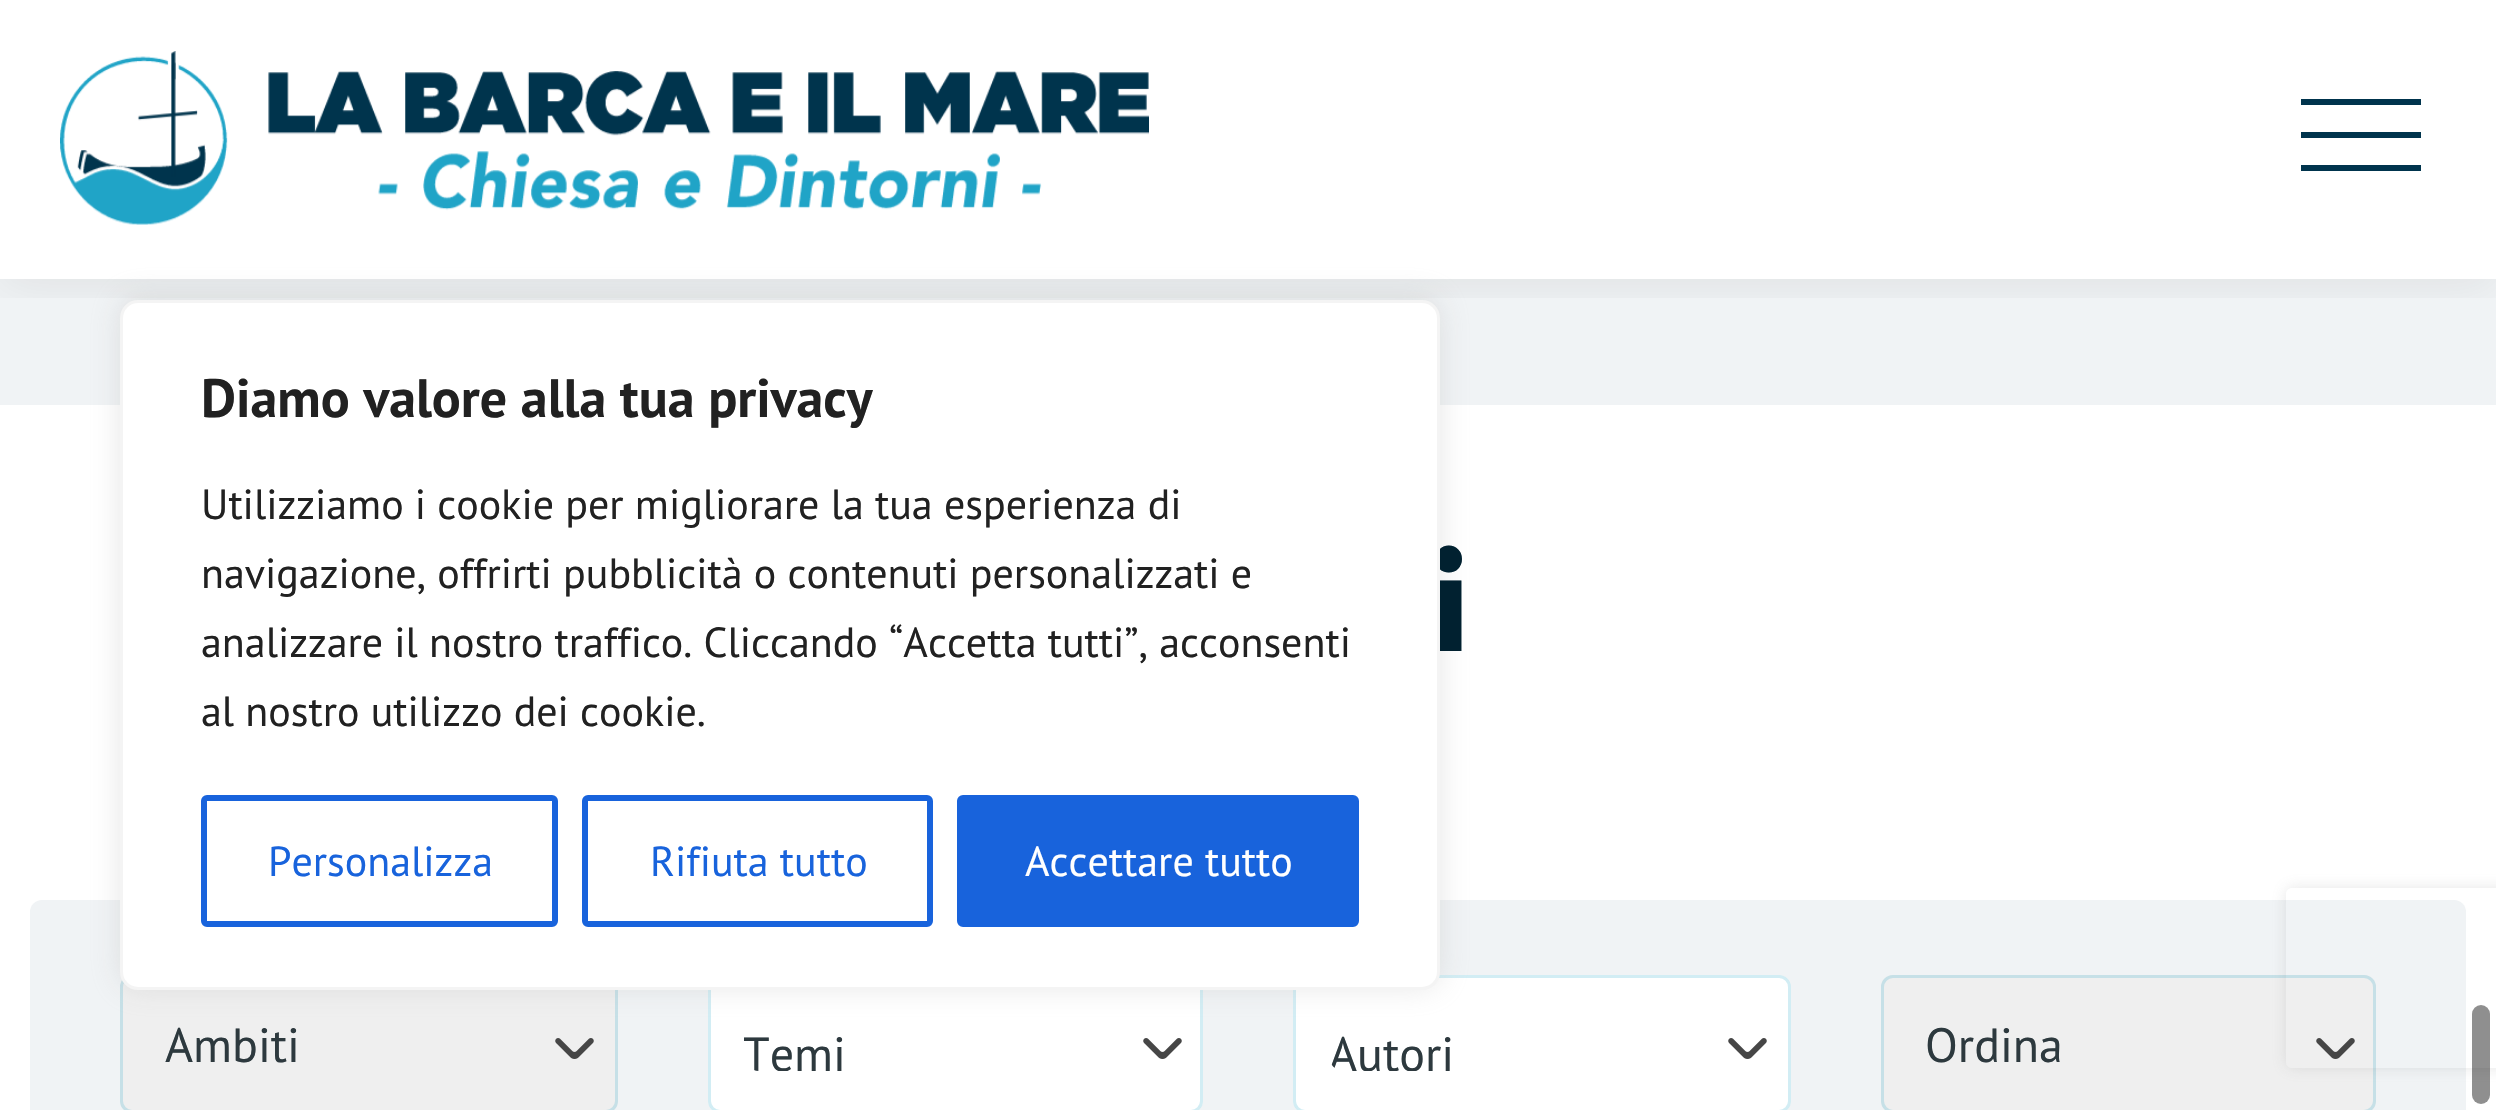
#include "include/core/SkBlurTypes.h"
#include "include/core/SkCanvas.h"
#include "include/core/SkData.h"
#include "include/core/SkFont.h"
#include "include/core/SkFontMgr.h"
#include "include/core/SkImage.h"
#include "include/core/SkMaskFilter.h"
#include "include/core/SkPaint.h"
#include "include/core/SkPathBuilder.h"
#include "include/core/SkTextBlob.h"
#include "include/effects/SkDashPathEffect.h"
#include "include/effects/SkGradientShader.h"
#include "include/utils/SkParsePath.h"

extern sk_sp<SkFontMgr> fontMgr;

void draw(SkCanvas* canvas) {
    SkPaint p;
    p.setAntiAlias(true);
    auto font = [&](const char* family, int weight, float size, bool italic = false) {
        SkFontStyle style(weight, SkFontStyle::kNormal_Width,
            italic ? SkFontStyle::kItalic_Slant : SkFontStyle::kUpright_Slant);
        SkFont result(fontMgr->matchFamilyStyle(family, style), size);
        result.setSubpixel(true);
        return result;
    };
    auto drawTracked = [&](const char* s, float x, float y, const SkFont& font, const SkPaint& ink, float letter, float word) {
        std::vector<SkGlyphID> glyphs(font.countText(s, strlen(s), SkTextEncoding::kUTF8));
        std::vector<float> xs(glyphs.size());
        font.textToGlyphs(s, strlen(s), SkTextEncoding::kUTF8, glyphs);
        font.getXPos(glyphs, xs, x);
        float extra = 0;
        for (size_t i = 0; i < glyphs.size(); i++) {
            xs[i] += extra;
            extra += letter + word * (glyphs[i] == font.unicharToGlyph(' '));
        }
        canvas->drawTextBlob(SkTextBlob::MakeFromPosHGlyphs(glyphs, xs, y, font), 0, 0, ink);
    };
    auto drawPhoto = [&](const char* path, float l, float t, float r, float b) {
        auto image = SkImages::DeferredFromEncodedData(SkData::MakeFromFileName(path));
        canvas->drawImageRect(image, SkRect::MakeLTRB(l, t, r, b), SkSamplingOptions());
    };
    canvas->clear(0xFFFFFFFF);
    p.setColor(0xFFF0F3F5);
    canvas->drawRect(SkRect::MakeLTRB(0, 279, 2496, 405), p);
    canvas->drawRoundRect(SkRect::MakeLTRB(30, 900, 2466, 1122), 12, 12, p);
    p.setColor(0xFFEFEFEF);
    canvas->drawRoundRect(SkRect::MakeLTRB(120, 975, 618, 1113), 12, 12, p);
    drawPhoto("media/2.png", 555, 1038, 594, 1059);
    p.setStyle(SkPaint::kStroke_Style);
    p.setStrokeWidth(3);
    p.setColor(0xFFC6E0E7);
    canvas->drawRoundRect(SkRect::MakeLTRB(121.5f, 976.5f, 616.5f, 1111.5f), 10.5f, 10.5f, p);
    p.setStyle(SkPaint::kFill_Style);
    p.setColor(0xFFFFFFFF);
    canvas->drawRoundRect(SkRect::MakeLTRB(708, 975, 1203, 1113), 12, 12, p);
    drawPhoto("media/3.png", 1143, 1038, 1182, 1059);
    p.setStyle(SkPaint::kStroke_Style);
    p.setColor(0x3320A4C7);
    canvas->drawRoundRect(SkRect::MakeLTRB(709.5f, 976.5f, 1201.5f, 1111.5f), 10.5f, 10.5f, p);
    p.setStyle(SkPaint::kFill_Style);
    p.setColor(0xFFFFFFFF);
    canvas->drawRoundRect(SkRect::MakeLTRB(1293, 975, 1791, 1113), 12, 12, p);
    drawPhoto("media/3.png", 1728, 1038, 1767, 1059);
    p.setStyle(SkPaint::kStroke_Style);
    p.setColor(0x3320A4C7);
    canvas->drawRoundRect(SkRect::MakeLTRB(1294.5f, 976.5f, 1789.5f, 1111.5f), 10.5f, 10.5f, p);
    p.setStyle(SkPaint::kFill_Style);
    p.setColor(0x4DACABAB);
    p.setMaskFilter(SkMaskFilter::MakeBlur(kNormal_SkBlurStyle, 15));
    canvas->drawRoundRect(SkRect::MakeLTRB(120, 297, 1440, 987), 18, 18, p);
    p.setMaskFilter(nullptr);
    canvas->save();
    canvas->clipRect(SkRect::MakeLTRB(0, 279, 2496, 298));
    p.setColor(0x12000000);
    p.setMaskFilter(SkMaskFilter::MakeBlur(kNormal_SkBlurStyle, 22.5f));
    canvas->drawRect(SkRect::MakeLTRB(0, 6, 2496, 285), p);
    p.setMaskFilter(nullptr);
    canvas->restore();
    auto font1 = font("Outfit", 800, 144);
    p.setColor(0xFF012130);
    drawTracked("i", 1429, 651, font1, p, -4, 0);
    p.setColor(0xFFFFFFFF);
    canvas->drawRoundRect(SkRect::MakeLTRB(121.5f, 301.5f, 1438.5f, 988.5f), 16.5f, 16.5f, p);
    p.setStyle(SkPaint::kStroke_Style);
    p.setColor(0xFFF4F4F4);
    canvas->drawRoundRect(SkRect::MakeLTRB(121.5f, 301.5f, 1438.5f, 988.5f), 16.5f, 16.5f, p);
    auto font2 = font("PT Sans", 700, 54);
    p.setStyle(SkPaint::kFill_Style);
    p.setColor(0xFF212121);
    canvas->drawString("Diamo valore alla tua privacy", 201, 417, font2, p);
    auto font3 = font("PT Sans", 400, 42);
    {
        const struct { const char* s; float x, y; } items[] = {
            {"Utilizziamo i cookie per migliorare la tua esperienza di", 201, 519},
            {"navigazione, offrirti pubblicità o contenuti personalizzati e", 201, 588},
            {"analizzare il nostro traffico. Cliccando “Accetta tutti”, acconsenti", 201, 657},
            {"al nostro utilizzo dei cookie.", 201, 726},
        };
        for (auto [s, x, y] : items) {
            canvas->drawString(s, x, y, font3, p);
        }
    }
    p.setStyle(SkPaint::kStroke_Style);
    p.setStrokeWidth(6);
    p.setColor(0xFF1863DC);
    canvas->drawRoundRect(SkRect::MakeLTRB(204, 798, 555, 924), 3, 3, p);
    p.setStyle(SkPaint::kFill_Style);
    canvas->drawString("Personalizza", 268, 876, font3, p);
    p.setStyle(SkPaint::kStroke_Style);
    canvas->drawRoundRect(SkRect::MakeLTRB(585, 798, 930, 924), 3, 3, p);
    p.setStyle(SkPaint::kFill_Style);
    canvas->drawString("Rifiuta tutto", 650, 876, font3, p);
    canvas->drawRoundRect(SkRect::MakeLTRB(960, 798, 1356, 924), 3, 3, p);
    p.setStyle(SkPaint::kStroke_Style);
    canvas->drawRoundRect(SkRect::MakeLTRB(960, 798, 1356, 924), 3, 3, p);
    p.setStyle(SkPaint::kFill_Style);
    p.setColor(0xFFFFFFFF);
    canvas->drawString("Accettare tutto", 1025, 876, font3, p);
    drawPhoto("media/1.png", 60, 51, 1149, 225);
    {
        const struct { float l, t, r, b; SkColor color; } items[] = {
            {2301, 99, 2421, 105, 0xFF00344D},
            {2301, 132, 2421, 138, 0xFF00344D},
            {2301, 165, 2421, 171, 0xFF00344D},
        };
        for (auto [l, t, r, b, color] : items) {
            p.setColor(color);
            canvas->drawRect(SkRect::MakeLTRB(l, t, r, b), p);
        }
    }
    auto font4 = font("PT Sans", 400, 48);
    p.setColor(0xFF2D393E);
    canvas->drawString("Ambiti", 165, 1062, font4, p);
    canvas->save();
    canvas->clipPath(SkPathBuilder().moveTo(759, 1017).lineTo(1191, 1017).lineTo(1191, 1071).lineTo(759, 1071).cubicTo(750.5f, 1071, 744, 1064.5f, 744, 1056).lineTo(744, 1032).cubicTo(744, 1023.5f, 750.5f, 1017, 759, 1017).close().detach(), true);
    canvas->drawString("Temi", 743, 1071, font4, p);
    canvas->restore();
    canvas->save();
    canvas->clipPath(SkPathBuilder().moveTo(1344, 1017).lineTo(1779, 1017).lineTo(1779, 1071).lineTo(1344, 1071).cubicTo(1335.5f, 1071, 1329, 1064.5f, 1329, 1056).lineTo(1329, 1032).cubicTo(1329, 1023.5f, 1335.5f, 1017, 1344, 1017).close().detach(), true);
    canvas->drawString("Autori", 1329, 1071, font4, p);
    canvas->restore();
    p.setColor(0xFFEFEFEF);
    canvas->drawRoundRect(SkRect::MakeLTRB(1881, 975, 2376, 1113), 12, 12, p);
    drawPhoto("media/2.png", 2316, 1038, 2355, 1059);
    p.setStyle(SkPaint::kStroke_Style);
    p.setStrokeWidth(3);
    p.setColor(0xFFC6E0E7);
    canvas->drawRoundRect(SkRect::MakeLTRB(1882.5f, 976.5f, 2374.5f, 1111.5f), 10.5f, 10.5f, p);
    p.setStyle(SkPaint::kFill_Style);
    p.setColor(0xFF2D393E);
    canvas->drawString("Ordina", 1925, 1062, font4, p);
    canvas->save();
    canvas->clipPath(SkPathBuilder(SkPathFillType::kEvenOdd).moveTo(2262, 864).lineTo(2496, 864).lineTo(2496, 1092).lineTo(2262, 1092).close().moveTo(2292, 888).lineTo(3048, 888).cubicTo(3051.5f, 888, 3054, 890.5f, 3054, 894).lineTo(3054, 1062).cubicTo(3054, 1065.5f, 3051.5f, 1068, 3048, 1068).lineTo(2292, 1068).cubicTo(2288.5f, 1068, 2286, 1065.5f, 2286, 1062).lineTo(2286, 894).cubicTo(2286, 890.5f, 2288.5f, 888, 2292, 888).close().detach(), true);
    p.setColor(0x33808080);
    p.setMaskFilter(SkMaskFilter::MakeBlur(kNormal_SkBlurStyle, 7.5f));
    canvas->drawRoundRect(SkRect::MakeLTRB(2286, 888, 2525, 1068), 6, 6, p);
    p.setMaskFilter(nullptr);
    canvas->restore();
    p.setColor(0x70000000);
    canvas->drawRoundRect(SkRect::MakeLTRB(2472, 1005, 2490, 1104), 9, 9, p);
}
